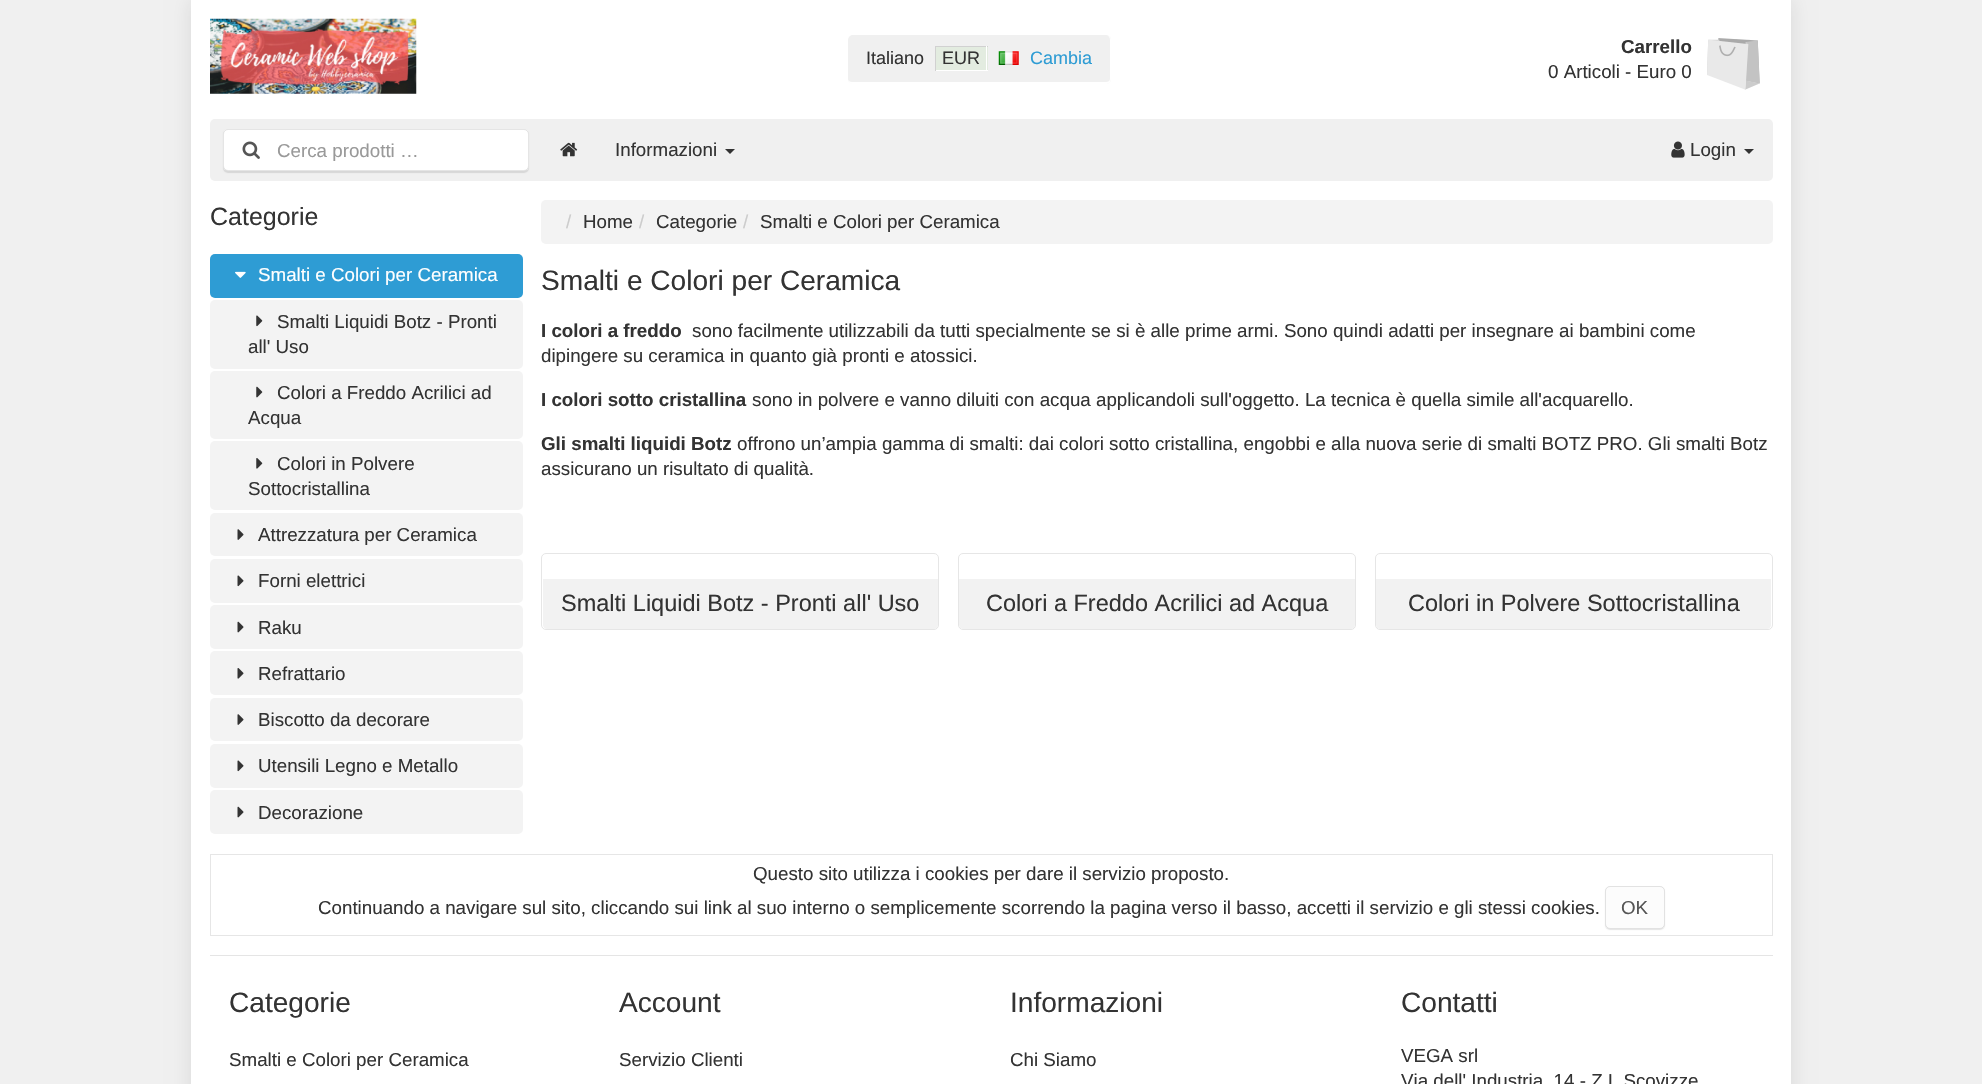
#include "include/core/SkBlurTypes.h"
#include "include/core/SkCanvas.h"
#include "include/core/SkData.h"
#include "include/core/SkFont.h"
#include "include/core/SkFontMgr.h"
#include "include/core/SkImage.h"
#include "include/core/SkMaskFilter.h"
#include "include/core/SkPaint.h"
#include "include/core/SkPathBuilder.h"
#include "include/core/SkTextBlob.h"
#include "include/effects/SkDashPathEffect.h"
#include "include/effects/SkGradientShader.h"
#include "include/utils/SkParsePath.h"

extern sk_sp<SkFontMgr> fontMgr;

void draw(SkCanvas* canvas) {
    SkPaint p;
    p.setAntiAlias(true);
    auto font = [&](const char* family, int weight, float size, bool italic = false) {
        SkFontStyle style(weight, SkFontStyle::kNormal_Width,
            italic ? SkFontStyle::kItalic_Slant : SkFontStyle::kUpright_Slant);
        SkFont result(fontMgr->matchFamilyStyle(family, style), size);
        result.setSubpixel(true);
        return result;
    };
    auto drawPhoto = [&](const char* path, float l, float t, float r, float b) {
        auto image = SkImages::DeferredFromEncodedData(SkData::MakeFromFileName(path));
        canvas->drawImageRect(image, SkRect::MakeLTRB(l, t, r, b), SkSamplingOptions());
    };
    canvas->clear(0xFFF0F0F0);
    p.setColor(0x1A000000);
    p.setMaskFilter(SkMaskFilter::MakeBlur(kNormal_SkBlurStyle, 9.5f));
    canvas->drawRect(SkRect::MakeLTRB(191, 0, 1791, 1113), p);
    p.setMaskFilter(nullptr);
    p.setColor(0xFFFFFFFF);
    canvas->drawRect(SkRect::MakeLTRB(191, 0, 1791, 1084), p);
    drawPhoto("media/1.png", 210, 18, 417, 94);
    p.setColor(0xFFF0F0F0);
    canvas->drawRoundRect(SkRect::MakeLTRB(848, 35, 1111, 84), 5, 5, p);
    p.setColor(0xFFFFFFFF);
    canvas->drawPath(SkPathBuilder(SkPathFillType::kEvenOdd).moveTo(852, 35).lineTo(1106, 35).cubicTo(1109, 35, 1111, 37, 1111, 40).lineTo(1111, 79).cubicTo(1111, 82, 1109, 84, 1106, 84).lineTo(852, 84).cubicTo(850, 84, 848, 82, 848, 79).lineTo(848, 40).cubicTo(848, 37, 850, 35, 852, 35).close().moveTo(852, 35).lineTo(1106, 35).cubicTo(1108, 35, 1110, 37, 1110, 40).lineTo(1110, 79).cubicTo(1110, 81, 1108, 82, 1106, 82).lineTo(852, 82).cubicTo(850, 82, 848, 81, 848, 79).lineTo(848, 40).cubicTo(848, 37, 850, 35, 852, 35).close().detach(), p);
    auto font1 = font("Liberation Sans", 400, 18);
    p.setColor(0xFF333333);
    canvas->drawString("Italiano", 866, 64, font1, p);
    p.setColor(0xFFE3ECE0);
    canvas->drawRect(SkRect::MakeLTRB(936, 47, 988, 70), p);
    p.setColor(0xFF333333);
    canvas->drawString("EUR", 942, 64, font1, p);
    {
        const struct { float l, t, r, b; SkColor color; } items[] = {
            {935, 46, 988, 47, 0xFFD1D1D1},
            {986, 46, 987, 71, 0xFFFFFFFF},
            {935, 70, 988, 71, 0xFFFFFFFF},
            {935, 46, 936, 71, 0xFFD1D1D1},
        };
        for (auto [l, t, r, b, color] : items) {
            p.setColor(color);
            canvas->drawRect(SkRect::MakeLTRB(l, t, r, b), p);
        }
    }
    drawPhoto("media/2.png", 998, 51, 1019, 65);
    p.setColor(0xFF2E9CD4);
    canvas->drawString("Cambia", 1030, 64, font1, p);
    auto font2 = font("Liberation Sans", 700, 18.75f);
    p.setColor(0xFF333333);
    canvas->drawString("Carrello", 1621, 53, font2, p);
    auto font3 = font("Liberation Sans", 400, 18.75f);
    canvas->drawString("0 Articoli - Euro 0", 1548, 78, font3, p);
    drawPhoto("media/3.png", 1707, 38, 1760, 90);
    p.setColor(0xFFF0F0F0);
    canvas->drawRoundRect(SkRect::MakeLTRB(210, 119, 1773, 181), 5, 5, p);
    p.setColor(0x1A000000);
    p.setMaskFilter(SkMaskFilter::MakeBlur(kNormal_SkBlurStyle, 0.5f));
    canvas->drawRoundRect(SkRect::MakeLTRB(223, 130, 529, 173), 5, 5, p);
    p.setMaskFilter(nullptr);
    p.setColor(0xFFFFFFFF);
    canvas->drawRoundRect(SkRect::MakeLTRB(223, 129, 529, 171), 5, 5, p);
    p.setStyle(SkPaint::kStroke_Style);
    p.setStrokeWidth(1);
    p.setColor(0x1A000000);
    canvas->drawRoundRect(SkRect::MakeLTRB(223.5f, 129.5f, 528.5f, 170.5f), 4.5f, 4.5f, p);
    drawPhoto("media/4.png", 242, 141, 260, 159);
    p.setStyle(SkPaint::kFill_Style);
    p.setColor(0xFF999999);
    canvas->drawString("Cerca prodotti …", 277, 157, font3, p);
    drawPhoto("media/5.png", 560, 142, 578, 157);
    p.setColor(0xFF333333);
    canvas->drawString("Informazioni", 615, 156, font3, p);
    canvas->drawPath(SkPathBuilder().moveTo(725, 149).lineTo(735, 149).lineTo(730, 154).close().detach(), p);
    drawPhoto("media/6.png", 1671, 141, 1685, 158);
    canvas->drawString("Login", 1690, 156, font3, p);
    canvas->drawPath(SkPathBuilder().moveTo(1744, 149).lineTo(1754, 149).lineTo(1749, 154).close().detach(), p);
    auto font4 = font("Liberation Sans", 400, 25);
    canvas->drawString("Categorie", 210, 225, font4, p);
    p.setColor(0xFF2E9CD4);
    canvas->drawRoundRect(SkRect::MakeLTRB(210, 254, 523, 298), 5, 5, p);
    drawPhoto("media/7.png", 235, 271, 246, 278);
    p.setColor(0xFFFFFFFF);
    canvas->drawString("Smalti e Colori per Ceramica", 258, 281, font3, p);
    p.setColor(0xFFF3F3F3);
    canvas->drawRoundRect(SkRect::MakeLTRB(210, 300, 523, 369), 5, 5, p);
    drawPhoto("media/8.png", 256, 315, 263, 327);
    p.setColor(0xFF333333);
    canvas->drawString("Smalti Liquidi Botz - Pronti", 277, 328, font3, p);
    canvas->drawString("all' Uso", 248, 353, font3, p);
    p.setColor(0xFFF3F3F3);
    canvas->drawRoundRect(SkRect::MakeLTRB(210, 371, 523, 439), 5, 5, p);
    drawPhoto("media/9.png", 256, 386, 263, 398);
    p.setColor(0xFF333333);
    canvas->drawString("Colori a Freddo Acrilici ad", 277, 399, font3, p);
    canvas->drawString("Acqua", 248, 424, font3, p);
    p.setColor(0xFFF3F3F3);
    canvas->drawRoundRect(SkRect::MakeLTRB(210, 441, 523, 510), 5, 5, p);
    drawPhoto("media/10.png", 256, 458, 263, 469);
    p.setColor(0xFF333333);
    canvas->drawString("Colori in Polvere", 277, 470, font3, p);
    canvas->drawString("Sottocristallina", 248, 495, font3, p);
    p.setColor(0xFFF3F3F3);
    canvas->drawRoundRect(SkRect::MakeLTRB(210, 513, 523, 556), 5, 5, p);
    drawPhoto("media/11.png", 237, 529, 244, 540);
    p.setColor(0xFF333333);
    canvas->drawString("Attrezzatura per Ceramica", 258, 541, font3, p);
    p.setColor(0xFFF3F3F3);
    canvas->drawRoundRect(SkRect::MakeLTRB(210, 559, 523, 603), 5, 5, p);
    drawPhoto("media/12.png", 237, 575, 244, 587);
    p.setColor(0xFF333333);
    canvas->drawString("Forni elettrici", 258, 587, font3, p);
    p.setColor(0xFFF3F3F3);
    canvas->drawRoundRect(SkRect::MakeLTRB(210, 605, 523, 649), 5, 5, p);
    drawPhoto("media/13.png", 237, 621, 244, 633);
    p.setColor(0xFF333333);
    canvas->drawString("Raku", 258, 634, font3, p);
    p.setColor(0xFFF3F3F3);
    canvas->drawRoundRect(SkRect::MakeLTRB(210, 651, 523, 695), 5, 5, p);
    drawPhoto("media/14.png", 237, 668, 244, 679);
    p.setColor(0xFF333333);
    canvas->drawString("Refrattario", 258, 680, font3, p);
    p.setColor(0xFFF3F3F3);
    canvas->drawRoundRect(SkRect::MakeLTRB(210, 698, 523, 741), 5, 5, p);
    drawPhoto("media/11.png", 237, 714, 244, 725);
    p.setColor(0xFF333333);
    canvas->drawString("Biscotto da decorare", 258, 726, font3, p);
    p.setColor(0xFFF3F3F3);
    canvas->drawRoundRect(SkRect::MakeLTRB(210, 744, 523, 788), 5, 5, p);
    drawPhoto("media/12.png", 237, 760, 244, 772);
    p.setColor(0xFF333333);
    canvas->drawString("Utensili Legno e Metallo", 258, 772, font3, p);
    p.setColor(0xFFF3F3F3);
    canvas->drawRoundRect(SkRect::MakeLTRB(210, 790, 523, 834), 5, 5, p);
    drawPhoto("media/13.png", 237, 806, 244, 818);
    p.setColor(0xFF333333);
    canvas->drawString("Decorazione", 258, 819, font3, p);
    p.setColor(0xFFF3F3F3);
    canvas->drawRoundRect(SkRect::MakeLTRB(541, 200, 1773, 244), 5, 5, p);
    p.setColor(0xFFCCCCCC);
    canvas->drawString("/", 566, 228, font3, p);
    p.setColor(0xFF333333);
    canvas->drawString("Home", 583, 228, font3, p);
    p.setColor(0xFFCCCCCC);
    canvas->drawString("/", 639, 228, font3, p);
    p.setColor(0xFF333333);
    canvas->drawString("Categorie", 656, 228, font3, p);
    p.setColor(0xFFCCCCCC);
    canvas->drawString("/", 743, 228, font3, p);
    p.setColor(0xFF333333);
    canvas->drawString("Smalti e Colori per Ceramica", 760, 228, font3, p);
    auto font5 = font("Liberation Sans", 400, 28.1f);
    canvas->drawString("Smalti e Colori per Ceramica", 541, 290, font5, p);
    canvas->drawString("I colori a freddo", 541, 337, font2, p);
    canvas->drawString("sono facilmente utilizzabili da tutti specialmente se si è alle prime armi. Sono quindi adatti per insegnare ai bambini come", 692, 337, font3, p);
    canvas->drawString("dipingere su ceramica in quanto già pronti e atossici.", 541, 362, font3, p);
    canvas->drawString("I colori sotto cristallina", 541, 406, font2, p);
    canvas->drawString("sono in polvere e vanno diluiti con acqua applicandoli sull'oggetto. La tecnica è quella simile all'acquarello.", 752, 406, font3, p);
    canvas->drawString("Gli smalti liquidi Botz", 541, 450, font2, p);
    canvas->drawString("offrono un’ampia gamma di smalti: dai colori sotto cristallina, engobbi e alla nuova serie di smalti BOTZ PRO. Gli smalti Botz", 737, 450, font3, p);
    canvas->drawString("assicurano un risultato di qualità.", 541, 475, font3, p);
    p.setStyle(SkPaint::kStroke_Style);
    p.setColor(0xFFE6E6E6);
    canvas->drawRoundRect(SkRect::MakeLTRB(541.5f, 553.5f, 938.5f, 629.5f), 4.5f, 4.5f, p);
    p.setStyle(SkPaint::kFill_Style);
    p.setColor(0xFFF2F2F2);
    canvas->drawPath(SkPathBuilder().moveTo(543, 579).lineTo(938, 579).lineTo(938, 625).cubicTo(938, 627, 936, 629, 934, 629).lineTo(547, 629).cubicTo(545, 629, 543, 627, 543, 625).close().detach(), p);
    auto font6 = font("Liberation Sans", 400, 23.5f);
    p.setColor(0xFF333333);
    canvas->drawString("Smalti Liquidi Botz - Pronti all' Uso", 561, 611, font6, p);
    p.setStyle(SkPaint::kStroke_Style);
    p.setColor(0xFFE6E6E6);
    canvas->drawRoundRect(SkRect::MakeLTRB(958.5f, 553.5f, 1355.5f, 629.5f), 4.5f, 4.5f, p);
    p.setStyle(SkPaint::kFill_Style);
    p.setColor(0xFFF2F2F2);
    canvas->drawPath(SkPathBuilder().moveTo(959, 579).lineTo(1355, 579).lineTo(1355, 625).cubicTo(1355, 627, 1353, 629, 1351, 629).lineTo(963, 629).cubicTo(961, 629, 959, 627, 959, 625).close().detach(), p);
    p.setColor(0xFF333333);
    canvas->drawString("Colori a Freddo Acrilici ad Acqua", 986, 611, font6, p);
    p.setStyle(SkPaint::kStroke_Style);
    p.setColor(0xFFE6E6E6);
    canvas->drawRoundRect(SkRect::MakeLTRB(1375.5f, 553.5f, 1772.5f, 629.5f), 4.5f, 4.5f, p);
    p.setStyle(SkPaint::kFill_Style);
    p.setColor(0xFFF2F2F2);
    canvas->drawPath(SkPathBuilder().moveTo(1376, 579).lineTo(1771, 579).lineTo(1771, 625).cubicTo(1771, 627, 1769, 629, 1767, 629).lineTo(1380, 629).cubicTo(1378, 629, 1376, 627, 1376, 625).close().detach(), p);
    p.setColor(0xFF333333);
    canvas->drawString("Colori in Polvere Sottocristallina", 1408, 611, font6, p);
    p.setStyle(SkPaint::kStroke_Style);
    p.setColor(0xFFE6E6E6);
    canvas->drawRect(SkRect::MakeLTRB(210.5f, 854.5f, 1772.5f, 935.5f), p);
    p.setStyle(SkPaint::kFill_Style);
    p.setColor(0xFF333333);
    canvas->drawString("Questo sito utilizza i cookies per dare il servizio proposto.", 753, 880, font3, p);
    canvas->drawString("Continuando a navigare sul sito, cliccando sui link al suo interno o semplicemente scorrendo la pagina verso il basso, accetti il servizio e gli stessi cookies.", 318, 914, font3, p);
    p.setColor(0x1A000000);
    p.setMaskFilter(SkMaskFilter::MakeBlur(kNormal_SkBlurStyle, 0.5f));
    canvas->drawRoundRect(SkRect::MakeLTRB(1605, 888, 1665, 930), 5, 5, p);
    p.setMaskFilter(nullptr);
    p.setColor(0xFFFCFCFC);
    canvas->drawRoundRect(SkRect::MakeLTRB(1605, 886, 1665, 929), 5, 5, p);
    p.setStyle(SkPaint::kStroke_Style);
    p.setColor(0x1A000000);
    canvas->drawRoundRect(SkRect::MakeLTRB(1605.5f, 886.5f, 1664.5f, 928.5f), 4.5f, 4.5f, p);
    p.setStyle(SkPaint::kFill_Style);
    p.setColor(0xFF555555);
    canvas->drawString("OK", 1621, 914, font3, p);
    p.setColor(0xFFE5E5E5);
    canvas->drawRect(SkRect::MakeLTRB(210, 955, 1773, 956), p);
    p.setColor(0xFF333333);
    canvas->drawString("Categorie", 229, 1012, font5, p);
    canvas->drawString("Smalti e Colori per Ceramica", 229, 1066, font3, p);
    canvas->drawString("Account", 619, 1012, font5, p);
    canvas->drawString("Servizio Clienti", 619, 1066, font3, p);
    canvas->drawString("Informazioni", 1010, 1012, font5, p);
    canvas->drawString("Chi Siamo", 1010, 1066, font3, p);
    canvas->drawString("Contatti", 1401, 1012, font5, p);
    canvas->drawString("VEGA srl", 1401, 1062, font3, p);
    canvas->drawString("Via dell' Industria, 14 - Z.I. Scovizze", 1401, 1087, font3, p);
}
